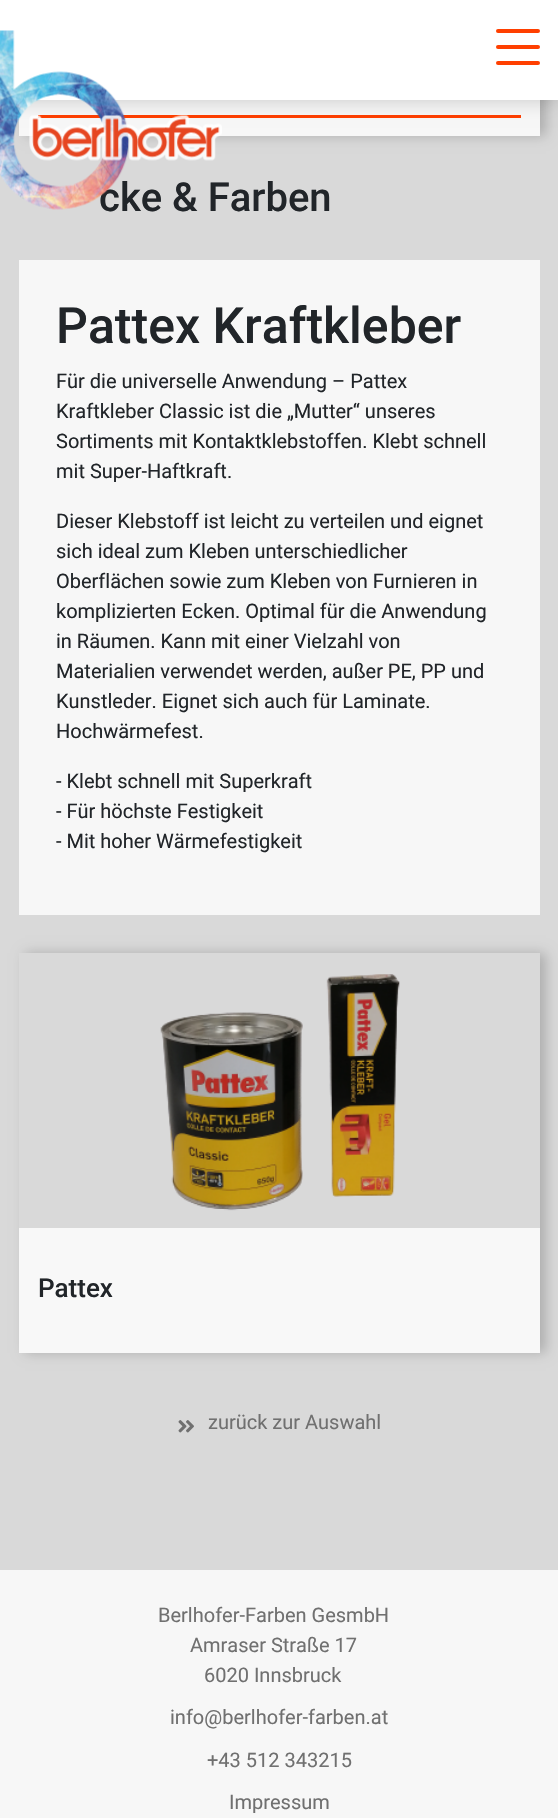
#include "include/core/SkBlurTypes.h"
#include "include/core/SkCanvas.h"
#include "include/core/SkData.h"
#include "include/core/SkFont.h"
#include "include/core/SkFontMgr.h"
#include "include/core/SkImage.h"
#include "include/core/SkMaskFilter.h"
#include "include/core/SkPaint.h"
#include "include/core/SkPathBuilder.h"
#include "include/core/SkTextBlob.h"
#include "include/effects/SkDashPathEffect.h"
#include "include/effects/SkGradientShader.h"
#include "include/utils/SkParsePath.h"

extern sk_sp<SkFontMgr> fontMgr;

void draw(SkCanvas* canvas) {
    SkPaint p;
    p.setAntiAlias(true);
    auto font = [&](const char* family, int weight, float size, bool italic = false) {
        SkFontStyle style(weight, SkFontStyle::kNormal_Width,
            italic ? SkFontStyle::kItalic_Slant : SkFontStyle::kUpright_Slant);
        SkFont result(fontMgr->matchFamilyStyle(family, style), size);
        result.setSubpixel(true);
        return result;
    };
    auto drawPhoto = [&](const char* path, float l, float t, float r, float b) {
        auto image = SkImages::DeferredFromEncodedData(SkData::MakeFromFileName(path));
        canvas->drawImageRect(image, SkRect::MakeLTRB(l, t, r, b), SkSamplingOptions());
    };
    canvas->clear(0xFFD9D9D9);
    p.setColor(0x33000000);
    p.setMaskFilter(SkMaskFilter::MakeBlur(kNormal_SkBlurStyle, 6));
    canvas->drawRect(SkRect::MakeLTRB(25, -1, 546, 136), p);
    p.setMaskFilter(nullptr);
    p.setColor(0xFFF7F7F7);
    canvas->drawRect(SkRect::MakeLTRB(19, 100, 540, 136), p);
    p.setColor(0xFFFF3F00);
    canvas->drawRect(SkRect::MakeLTRB(38, 115, 521, 118), p);
    p.setColor(0x33000000);
    p.setMaskFilter(SkMaskFilter::MakeBlur(kNormal_SkBlurStyle, 9.5f));
    canvas->drawRect(SkRect::MakeLTRB(0, 0, 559, 100), p);
    p.setMaskFilter(nullptr);
    p.setColor(0xFFFFFFFF);
    canvas->drawRect(SkRect::MakeLTRB(0, 0, 558, 100), p);
    auto font1 = font("Roboto", 500, 40);
    p.setColor(0xFF212529);
    canvas->drawString("cke & Farben", 99, 211, font1, p);
    drawPhoto("media/1.png", 0, 30, 222, 210);
    p.setColor(0xFFFF3F00);
    canvas->drawRoundRect(SkRect::MakeLTRB(496, 29, 540, 33), 2, 2, p);
    canvas->drawRoundRect(SkRect::MakeLTRB(496, 45, 540, 49), 2, 2, p);
    canvas->drawRoundRect(SkRect::MakeLTRB(496, 61, 540, 65), 2, 2, p);
    p.setColor(0xFFF7F7F7);
    canvas->drawRect(SkRect::MakeLTRB(19, 260, 540, 915), p);
    auto font2 = font("Roboto", 500, 50);
    p.setColor(0xFF212529);
    canvas->drawString("Pattex Kraftkleber", 56, 343, font2, p);
    auto font3 = font("Roboto", 400, 20);
    {
        const struct { const char* s; float x, y; } items[] = {
            {"Für die universelle Anwendung – Pattex", 56, 388},
            {"Kraftkleber Classic ist die „Mutter“ unseres", 56, 418},
            {"Sortiments mit Kontaktklebstoffen. Klebt schnell", 56, 448},
            {"mit Super-Haftkraft.", 56, 478},
            {"Dieser Klebstoff ist leicht zu verteilen und eignet", 56, 528},
            {"sich ideal zum Kleben unterschiedlicher", 56, 558},
            {"Oberflächen sowie zum Kleben von Furnieren in", 56, 588},
            {"komplizierten Ecken. Optimal für die Anwendung", 56, 618},
            {"in Räumen. Kann mit einer Vielzahl von", 56, 648},
            {"Materialien verwendet werden, außer PE, PP und", 56, 678},
            {"Kunstleder. Eignet sich auch für Laminate.", 56, 708},
            {"Hochwärmefest.", 56, 738},
            {"- Klebt schnell mit Superkraft", 56, 788},
            {"- Für höchste Festigkeit", 56, 818},
            {"- Mit hoher Wärmefestigkeit", 56, 848},
        };
        for (auto [s, x, y] : items) {
            canvas->drawString(s, x, y, font3, p);
        }
    }
    canvas->save();
    canvas->clipPath(SkPathBuilder(SkPathFillType::kEvenOdd).moveTo(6, 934).lineTo(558, 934).lineTo(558, 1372).lineTo(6, 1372).close().moveTo(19, 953).lineTo(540, 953).lineTo(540, 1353).lineTo(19, 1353).close().detach(), true);
    p.setColor(0x33000000);
    p.setMaskFilter(SkMaskFilter::MakeBlur(kNormal_SkBlurStyle, 6));
    canvas->drawRect(SkRect::MakeLTRB(25, 953, 546, 1353), p);
    p.setMaskFilter(nullptr);
    canvas->restore();
    drawPhoto("media/2.png", 160, 974, 400, 1211);
    p.setColor(0xCCFFFFFF);
    canvas->drawRect(SkRect::MakeLTRB(19, 1228, 540, 1353), p);
    auto font4 = font("Roboto", 500, 26);
    p.setColor(0xFF212529);
    canvas->drawString("Pattex", 38, 1297, font4, p);
    drawPhoto("media/3.png", 178, 1420, 194, 1433);
    p.setColor(0xFF707070);
    canvas->drawString("zurück zur Auswahl", 208, 1429, font3, p);
    p.setColor(0xFFF7F7F7);
    canvas->drawRect(SkRect::MakeLTRB(0, 1570, 558, 1818), p);
    p.setColor(0xFF707070);
    {
        const struct { const char* s; float x, y; } items[] = {
            {"Berlhofer-Farben GesmbH", 158, 1622},
            {"Amraser Straße 17", 190, 1652},
            {"6020 Innsbruck", 204, 1682},
            {"info@berlhofer-farben.at", 170, 1724},
            {"+43 512 343215", 207, 1767},
            {"Impressum", 229, 1809},
        };
        for (auto [s, x, y] : items) {
            canvas->drawString(s, x, y, font3, p);
        }
    }
}
